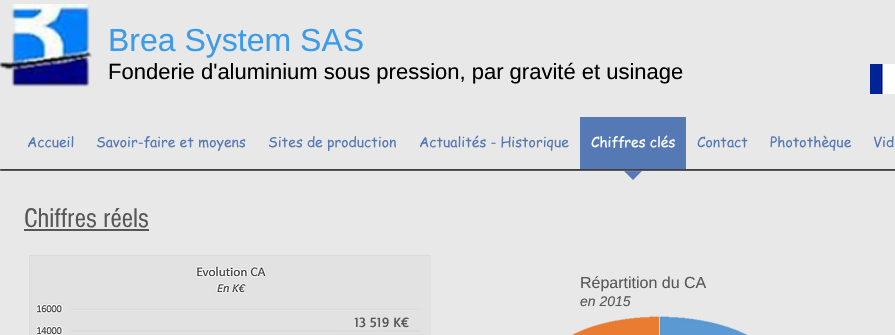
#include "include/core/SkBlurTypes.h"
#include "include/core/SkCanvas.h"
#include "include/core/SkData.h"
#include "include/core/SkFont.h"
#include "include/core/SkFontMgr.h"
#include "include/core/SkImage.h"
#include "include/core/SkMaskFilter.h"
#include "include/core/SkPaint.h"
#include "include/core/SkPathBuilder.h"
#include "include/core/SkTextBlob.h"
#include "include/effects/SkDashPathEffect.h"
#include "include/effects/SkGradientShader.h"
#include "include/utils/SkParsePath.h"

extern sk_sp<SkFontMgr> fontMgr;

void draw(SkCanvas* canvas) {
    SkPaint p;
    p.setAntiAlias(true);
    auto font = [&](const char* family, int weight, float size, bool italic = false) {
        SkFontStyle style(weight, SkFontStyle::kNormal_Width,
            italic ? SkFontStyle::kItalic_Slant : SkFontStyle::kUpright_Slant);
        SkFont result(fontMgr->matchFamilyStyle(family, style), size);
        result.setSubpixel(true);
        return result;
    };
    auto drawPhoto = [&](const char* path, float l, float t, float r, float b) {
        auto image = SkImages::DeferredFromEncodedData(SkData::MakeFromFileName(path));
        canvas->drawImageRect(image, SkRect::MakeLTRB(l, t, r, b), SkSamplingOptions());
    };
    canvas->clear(0xFFE8E8E8);
    drawPhoto("media/1.png", 0, 4, 93, 87);
    auto font1 = font("Liberation Sans", 400, 32);
    p.setColor(0xFF3D9BE9);
    canvas->drawString("Brea System SAS", 108, 51, font1, p);
    auto font2 = font("Liberation Sans", 400, 22);
    p.setColor(0xFF000000);
    canvas->drawString("Fonderie d'aluminium sous pression, par gravité et usinage", 108, 79, font2, p);
    drawPhoto("media/2.png", 870, 64, 895, 94);
    auto font3 = font("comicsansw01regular", 400, 14);
    p.setColor(0xFF5479B4);
    {
        const struct { const char* s; float x, y; } items[] = {
            {"Accueil", 27, 147},
            {"Savoir-faire et moyens", 96, 147},
            {"Sites de production", 268, 147},
            {"Actualités - Historique", 419, 147},
        };
        for (auto [s, x, y] : items) {
            canvas->drawString(s, x, y, font3, p);
        }
    }
    canvas->drawRect(SkRect::MakeLTRB(580, 117, 686, 169), p);
    p.setColor(0xFFFFFFFF);
    canvas->drawString("Chiffres clés", 591, 147, font3, p);
    p.setColor(0xFF5479B4);
    canvas->drawPath(SkPathBuilder().moveTo(623, 170).lineTo(643, 170).lineTo(633, 180).close().detach(), p);
    {
        const struct { const char* s; float x, y; } items[] = {
            {"Contact", 697, 147},
            {"Photothèque", 770, 147},
            {"Vid", 873, 147},
        };
        for (auto [s, x, y] : items) {
            canvas->drawString(s, x, y, font3, p);
        }
    }
    p.setColor(0x1AFFFFFF);
    canvas->drawPath(SkPathBuilder().moveTo(0, 170).cubicTo(0, 171, 0, 172, 1, 172).lineTo(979, 172).cubicTo(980, 172, 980, 171, 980, 170).lineTo(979, 171).lineTo(1, 171).close().detach(), p);
    p.setColor(0xFF575757);
    canvas->drawRoundRect(SkRect::MakeLTRB(0, 169, 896, 171), 1, 1, p);
    p.setColor(0x40000000);
    canvas->drawPath(SkPathBuilder().moveTo(1, 170).lineTo(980, 170).lineTo(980, 171).cubicTo(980, 170, 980, 169, 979, 169).lineTo(1, 169).cubicTo(0, 169, 0, 170, 0, 171).close().detach(), p);
    auto font4 = font("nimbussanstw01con", 400, 28);
    p.setColor(0xFF575757);
    canvas->drawString("Chiffres réels", 24, 227, font4, p);
    canvas->drawRect(SkRect::MakeLTRB(24, 229, 149, 231), p);
    auto font5 = font("Liberation Sans", 400, 16);
    canvas->drawString("Répartition du CA", 580, 288, font5, p);
    auto font6 = font("Liberation Sans", 400, 14, true);
    canvas->drawString("en 2015", 580, 306, font6, p);
    drawPhoto("media/3.png", 29, 255, 431, 335);
    auto font7 = font("Basic", 400, 14);
    canvas->drawString("13 519 K€", 354, 327, font7, p);
    drawPhoto("media/4.png", 571, 316, 748, 335);
}
